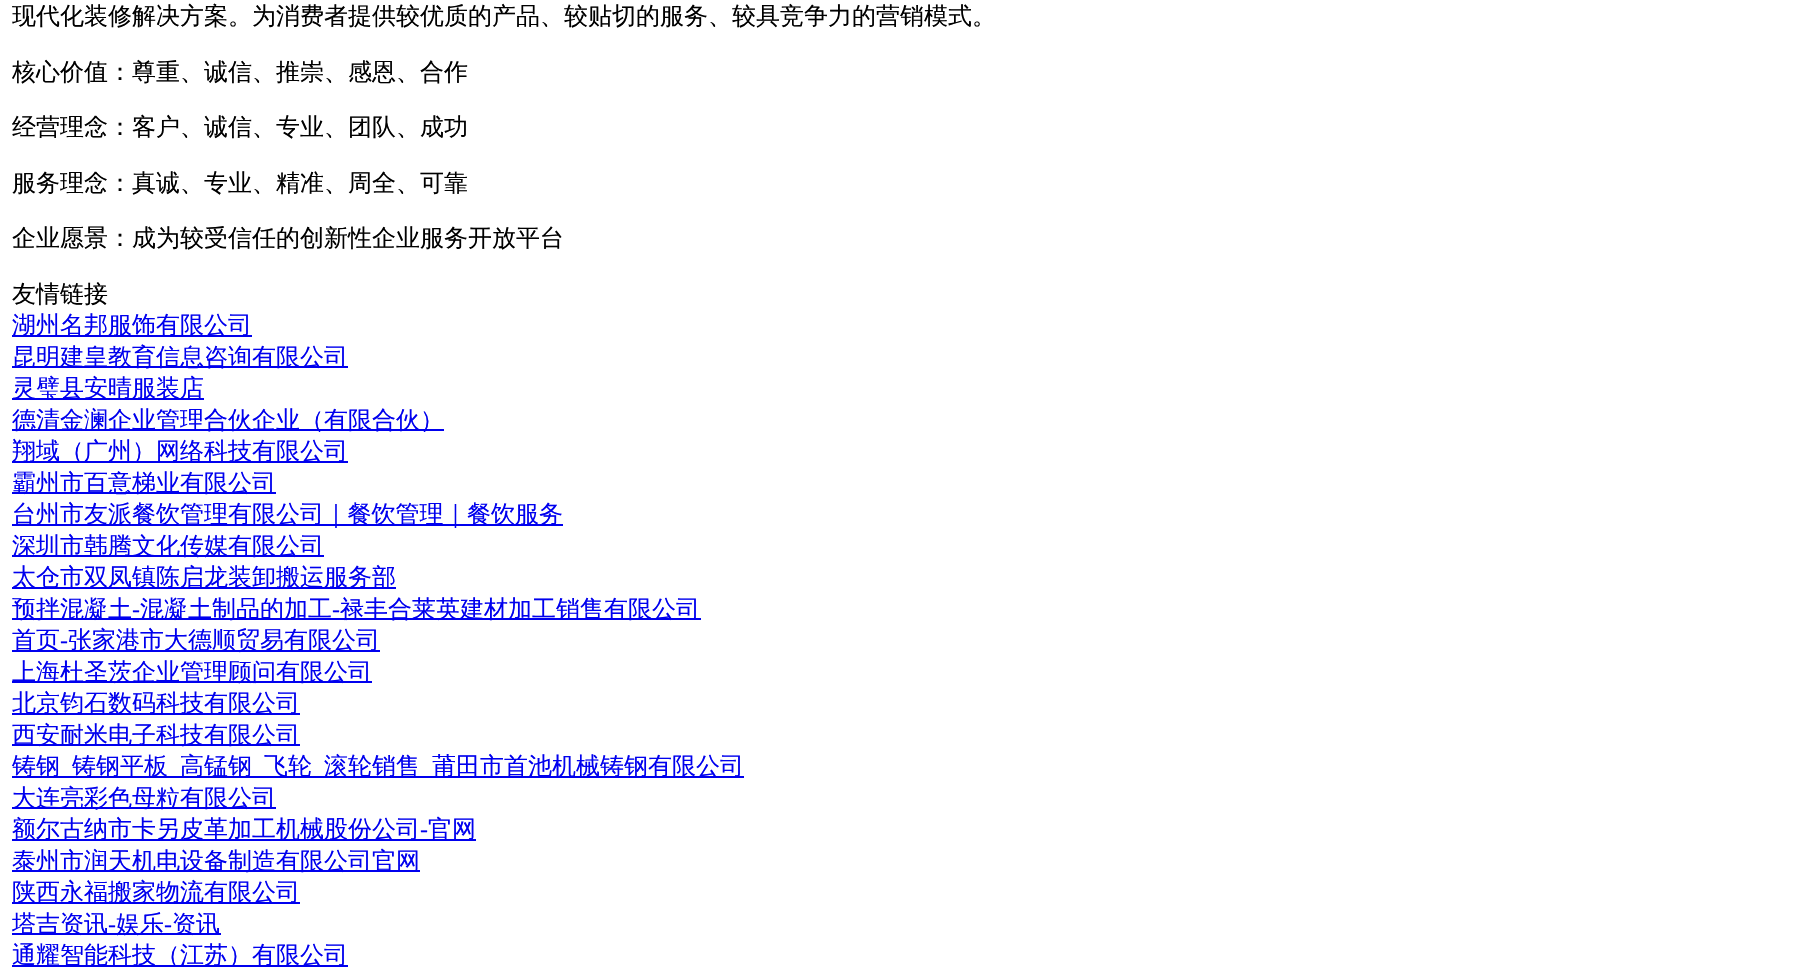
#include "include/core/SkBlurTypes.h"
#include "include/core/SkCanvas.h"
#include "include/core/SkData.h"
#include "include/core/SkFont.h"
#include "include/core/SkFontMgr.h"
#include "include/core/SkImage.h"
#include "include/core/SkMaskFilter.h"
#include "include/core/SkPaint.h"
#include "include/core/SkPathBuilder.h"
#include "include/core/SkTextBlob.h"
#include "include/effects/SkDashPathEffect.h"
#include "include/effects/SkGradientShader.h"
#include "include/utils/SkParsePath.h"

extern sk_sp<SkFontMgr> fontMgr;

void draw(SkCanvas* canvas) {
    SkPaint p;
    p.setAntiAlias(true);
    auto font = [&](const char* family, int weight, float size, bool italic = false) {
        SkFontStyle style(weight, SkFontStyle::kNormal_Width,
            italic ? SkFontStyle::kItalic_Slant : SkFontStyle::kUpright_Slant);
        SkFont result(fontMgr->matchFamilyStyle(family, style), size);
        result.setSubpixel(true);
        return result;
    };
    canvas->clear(0xFFFFFFFF);
    auto font1 = font("WenQuanYi Zen Hei", 500, 24);
    p.setColor(0xFF000000);
    {
        const struct { const char* s; float x, y; } items[] = {
            {"现代化装修解决方案。为消费者提供较优质的产品、较贴切的服务、较具竞争力的营销模式。", 12, 24},
            {"核心价值：尊重、诚信、推崇、感恩、合作", 12, 80},
            {"经营理念：客户、诚信、专业、团队、成功", 12, 135},
            {"服务理念：真诚、专业、精准、周全、可靠", 12, 191},
            {"企业愿景：成为较受信任的创新性企业服务开放平台", 12, 246},
            {"友情链接", 12, 302},
        };
        for (auto [s, x, y] : items) {
            canvas->drawString(s, x, y, font1, p);
        }
    }
    p.setColor(0xFF0000EE);
    canvas->drawRect(SkRect::MakeLTRB(12, 335, 252, 337), p);
    canvas->drawString("湖州名邦服饰有限公司", 12, 333, font1, p);
    canvas->drawRect(SkRect::MakeLTRB(12, 366, 348, 368), p);
    canvas->drawString("昆明建皇教育信息咨询有限公司", 12, 365, font1, p);
    canvas->drawRect(SkRect::MakeLTRB(12, 398, 204, 400), p);
    canvas->drawString("灵璧县安晴服装店", 12, 396, font1, p);
    canvas->drawRect(SkRect::MakeLTRB(12, 429, 444, 431), p);
    canvas->drawString("德清金澜企业管理合伙企业（有限合伙）", 12, 428, font1, p);
    canvas->drawRect(SkRect::MakeLTRB(12, 461, 348, 463), p);
    canvas->drawString("翔域（广州）网络科技有限公司", 12, 459, font1, p);
    canvas->drawRect(SkRect::MakeLTRB(12, 492, 276, 494), p);
    canvas->drawString("霸州市百意梯业有限公司", 12, 491, font1, p);
    canvas->drawRect(SkRect::MakeLTRB(12, 524, 563, 526), p);
    canvas->drawString("台州市友派餐饮管理有限公司｜餐饮管理｜餐饮服务", 12, 522, font1, p);
    canvas->drawRect(SkRect::MakeLTRB(12, 555, 324, 557), p);
    canvas->drawString("深圳市韩腾文化传媒有限公司", 12, 554, font1, p);
    canvas->drawRect(SkRect::MakeLTRB(12, 587, 396, 589), p);
    canvas->drawString("太仓市双凤镇陈启龙装卸搬运服务部", 12, 585, font1, p);
    canvas->drawRect(SkRect::MakeLTRB(12, 618, 701, 620), p);
    canvas->drawString("预拌混凝土", 12, 617, font1, p);
    auto font2 = font("Liberation Serif", 400, 24);
    canvas->drawString("-", 132, 617, font2, p);
    canvas->drawString("混凝土制品的加工", 140, 617, font1, p);
    canvas->drawString("-", 332, 617, font2, p);
    canvas->drawString("禄丰合莱英建材加工销售有限公司", 340, 617, font1, p);
    canvas->drawRect(SkRect::MakeLTRB(12, 650, 380, 652), p);
    canvas->drawString("首页", 12, 648, font1, p);
    canvas->drawString("-", 60, 648, font2, p);
    canvas->drawString("张家港市大德顺贸易有限公司", 68, 648, font1, p);
    canvas->drawRect(SkRect::MakeLTRB(12, 681, 372, 683), p);
    canvas->drawString("上海杜圣茨企业管理顾问有限公司", 12, 680, font1, p);
    canvas->drawRect(SkRect::MakeLTRB(12, 713, 300, 715), p);
    canvas->drawString("北京钧石数码科技有限公司", 12, 711, font1, p);
    canvas->drawRect(SkRect::MakeLTRB(12, 744, 300, 746), p);
    canvas->drawString("西安耐米电子科技有限公司", 12, 743, font1, p);
    canvas->drawRect(SkRect::MakeLTRB(12, 776, 744, 778), p);
    {
        const struct { const char* s; float x, y; } items[] = {
            {"铸钢", 12, 774},
            {"铸钢平板", 72, 774},
            {"高锰钢", 180, 774},
            {"飞轮", 264, 774},
            {"滚轮销售", 324, 774},
            {"莆田市首池机械铸钢有限公司", 432, 774},
        };
        for (auto [s, x, y] : items) {
            canvas->drawString(s, x, y, font1, p);
        }
    }
    canvas->drawRect(SkRect::MakeLTRB(12, 807, 276, 809), p);
    canvas->drawString("大连亮彩色母粒有限公司", 12, 806, font1, p);
    canvas->drawRect(SkRect::MakeLTRB(12, 839, 476, 841), p);
    canvas->drawString("额尔古纳市卡另皮革加工机械股份公司", 12, 837, font1, p);
    canvas->drawString("-", 420, 837, font2, p);
    canvas->drawString("官网", 428, 837, font1, p);
    canvas->drawRect(SkRect::MakeLTRB(12, 870, 420, 872), p);
    canvas->drawString("泰州市润天机电设备制造有限公司官网", 12, 869, font1, p);
    canvas->drawRect(SkRect::MakeLTRB(12, 902, 300, 904), p);
    canvas->drawString("陕西永福搬家物流有限公司", 12, 900, font1, p);
    canvas->drawRect(SkRect::MakeLTRB(12, 933, 221, 935), p);
    canvas->drawString("塔吉资讯", 12, 932, font1, p);
    canvas->drawString("-", 108, 932, font2, p);
    canvas->drawString("娱乐", 116, 932, font1, p);
    canvas->drawString("-", 164, 932, font2, p);
    canvas->drawString("资讯", 172, 932, font1, p);
    canvas->drawRect(SkRect::MakeLTRB(12, 965, 348, 967), p);
    canvas->drawString("通耀智能科技（江苏）有限公司", 12, 963, font1, p);
}
